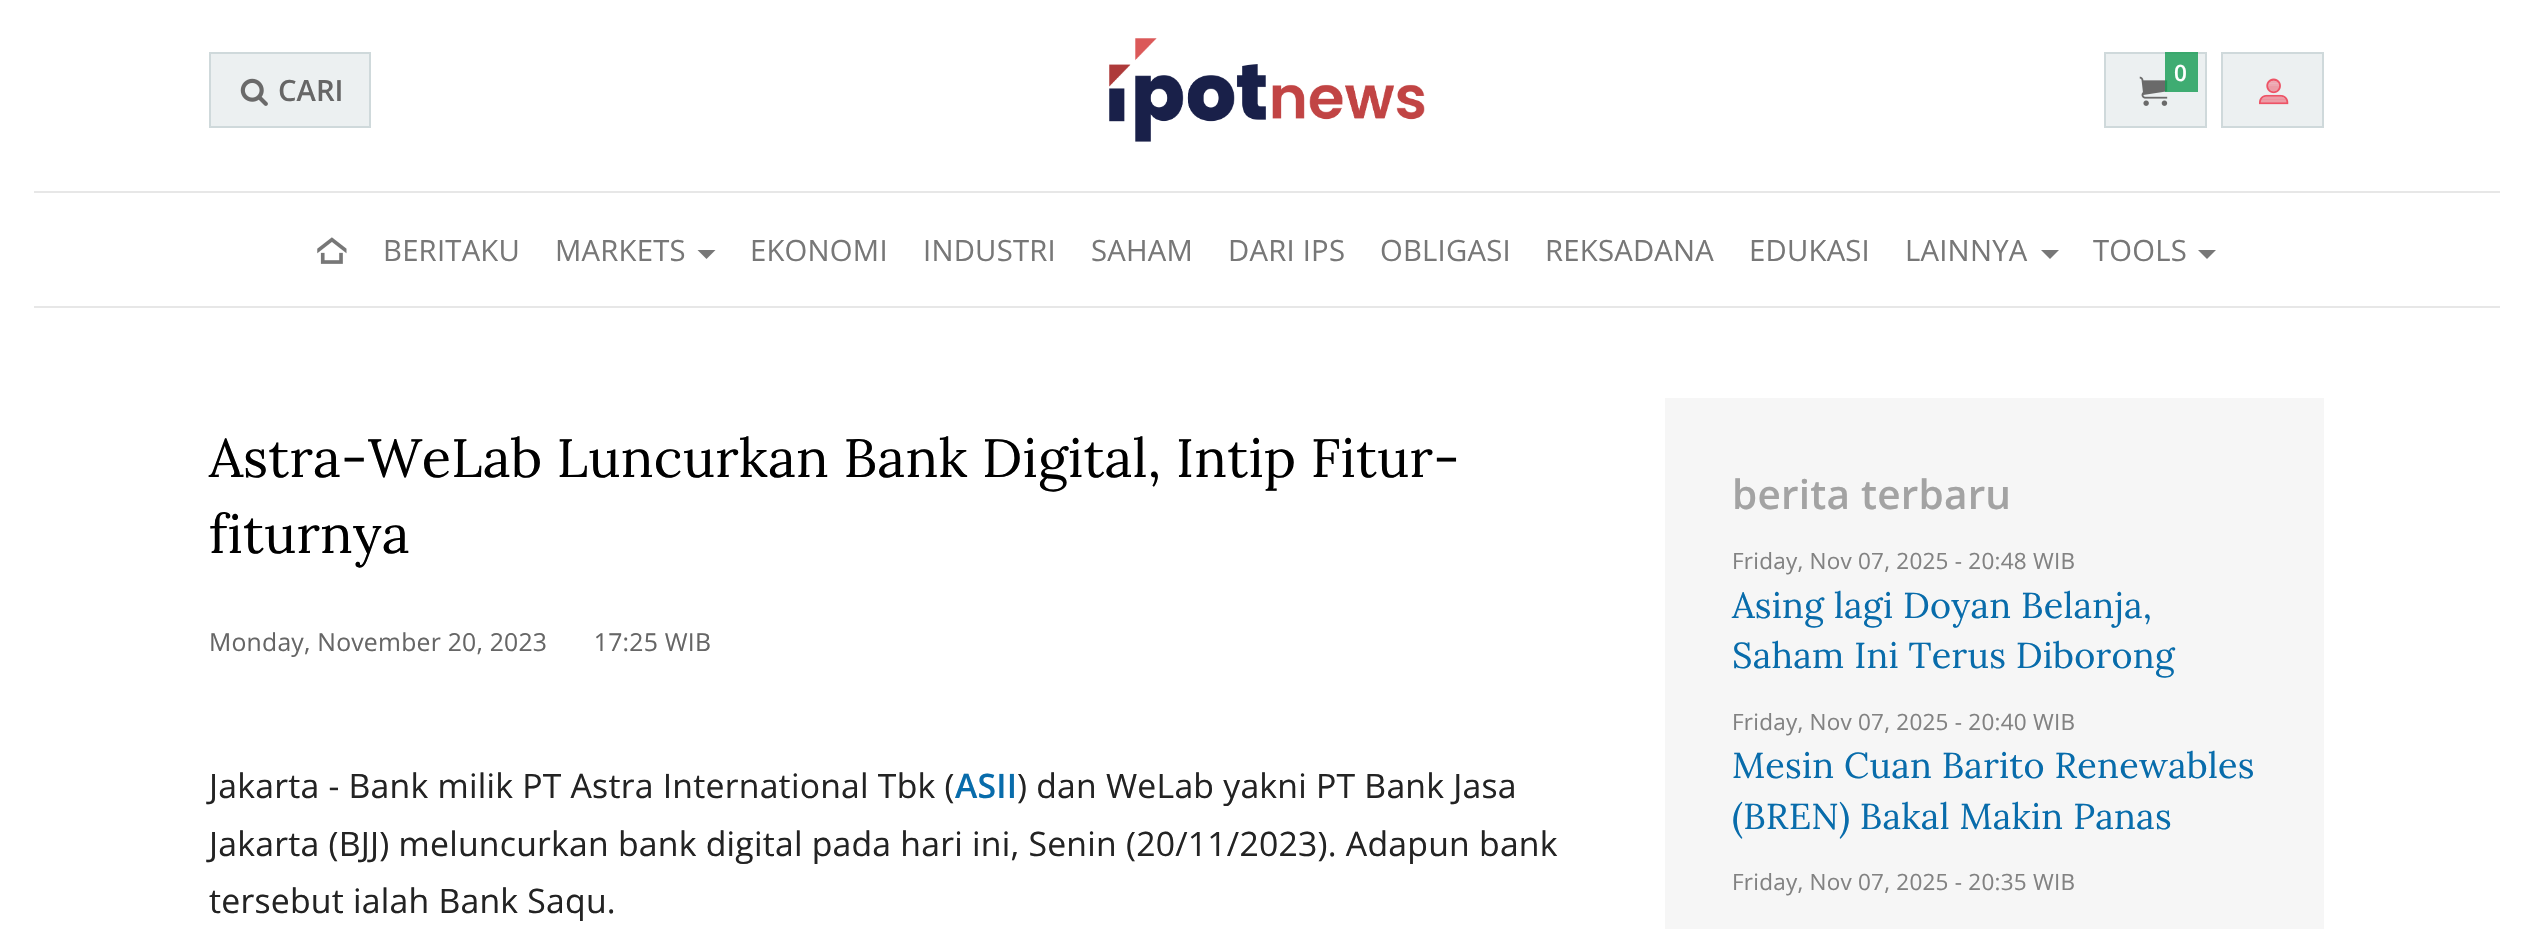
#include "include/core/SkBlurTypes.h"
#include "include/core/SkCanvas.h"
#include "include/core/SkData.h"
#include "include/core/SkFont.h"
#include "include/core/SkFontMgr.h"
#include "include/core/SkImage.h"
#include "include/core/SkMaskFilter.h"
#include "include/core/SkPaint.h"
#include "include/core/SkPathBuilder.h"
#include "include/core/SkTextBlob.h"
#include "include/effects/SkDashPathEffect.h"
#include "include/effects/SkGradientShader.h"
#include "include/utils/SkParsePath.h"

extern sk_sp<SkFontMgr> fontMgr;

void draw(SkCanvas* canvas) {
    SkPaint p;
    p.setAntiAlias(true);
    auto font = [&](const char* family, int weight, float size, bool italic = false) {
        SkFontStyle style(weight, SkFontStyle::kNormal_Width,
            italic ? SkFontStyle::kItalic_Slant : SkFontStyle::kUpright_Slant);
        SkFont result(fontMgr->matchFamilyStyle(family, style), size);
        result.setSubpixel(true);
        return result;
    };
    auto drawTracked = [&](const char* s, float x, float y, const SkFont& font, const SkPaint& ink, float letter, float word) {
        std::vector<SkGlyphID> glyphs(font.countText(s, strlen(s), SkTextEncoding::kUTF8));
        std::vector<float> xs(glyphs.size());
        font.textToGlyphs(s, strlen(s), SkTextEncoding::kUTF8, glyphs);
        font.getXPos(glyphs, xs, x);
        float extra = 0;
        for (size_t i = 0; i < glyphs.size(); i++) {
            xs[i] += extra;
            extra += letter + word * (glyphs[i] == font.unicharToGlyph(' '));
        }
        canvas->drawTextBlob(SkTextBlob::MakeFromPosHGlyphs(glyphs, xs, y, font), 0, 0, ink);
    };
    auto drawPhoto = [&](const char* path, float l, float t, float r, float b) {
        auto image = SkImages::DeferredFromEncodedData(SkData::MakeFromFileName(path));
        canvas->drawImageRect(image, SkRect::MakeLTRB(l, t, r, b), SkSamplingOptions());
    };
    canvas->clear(0xFFFFFFFF);
    drawPhoto("media/1.png", 1109, 38, 1425, 142);
    p.setColor(0xFFECF0F1);
    canvas->drawRect(SkRect::MakeLTRB(2105, 53, 2206, 127), p);
    p.setStyle(SkPaint::kStroke_Style);
    p.setStrokeWidth(2);
    p.setColor(0xFFCFD9DB);
    canvas->drawRect(SkRect::MakeLTRB(2105, 53, 2206, 127), p);
    drawPhoto("media/2.png", 2139, 76, 2168, 106);
    p.setStyle(SkPaint::kFill_Style);
    p.setColor(0xCC139B51);
    canvas->drawRect(SkRect::MakeLTRB(2165, 52, 2198, 92), p);
    auto font1 = font("Open Sans", 600, 22.5f);
    p.setColor(0xFFFFFFFF);
    canvas->drawString("0", 2174, 81, font1, p);
    p.setColor(0xFFECF0F1);
    canvas->drawRect(SkRect::MakeLTRB(2222, 53, 2323, 127), p);
    p.setStyle(SkPaint::kStroke_Style);
    p.setColor(0xFFCFD9DB);
    canvas->drawRect(SkRect::MakeLTRB(2222, 53, 2323, 127), p);
    drawPhoto("media/3.png", 2259, 78, 2289, 105);
    p.setStyle(SkPaint::kFill_Style);
    p.setColor(0xFFECF0F1);
    canvas->drawRect(SkRect::MakeLTRB(210, 53, 370, 127), p);
    p.setStyle(SkPaint::kStroke_Style);
    p.setColor(0xFFCFD9DB);
    canvas->drawRect(SkRect::MakeLTRB(210, 53, 370, 127), p);
    drawPhoto("media/4.png", 240, 78, 268, 106);
    auto font2 = font("Open Sans", 600, 29.25f);
    p.setStyle(SkPaint::kFill_Style);
    p.setColor(0xFF666666);
    canvas->drawString("CARI", 278, 101, font2, p);
    p.setColor(0xFFE7E7E7);
    canvas->drawRect(SkRect::MakeLTRB(34, 191, 2500, 193), p);
    canvas->drawRect(SkRect::MakeLTRB(34, 306, 2500, 308), p);
    drawPhoto("media/5.png", 317, 237, 347, 264);
    auto font3 = font("Open Sans", 400, 29.25f);
    p.setColor(0xFF777777);
    drawTracked("BERITAKU", 383, 261, font3, p, 0.23f, 0);
    drawTracked("MARKETS", 555, 261, font3, p, 0.23f, 0);
    canvas->drawPath(SkPathBuilder().moveTo(697.5f, 250).lineTo(715.5f, 250).lineTo(706.5f, 259).close().detach(), p);
    {
        const struct { const char* s; float x, y; } items[] = {
            {"EKONOMI", 750, 261},
            {"INDUSTRI", 923, 261},
            {"SAHAM", 1091, 261},
            {"DARI IPS", 1228, 261},
            {"OBLIGASI", 1380, 261},
            {"REKSADANA", 1545, 261},
            {"EDUKASI", 1749, 261},
            {"LAINNYA", 1905, 261},
        };
        for (auto [s, x, y] : items) {
            drawTracked(s, x, y, font3, p, 0.23f, 0);
        }
    }
    canvas->drawPath(SkPathBuilder().moveTo(2041, 250).lineTo(2059, 250).lineTo(2050, 259).close().detach(), p);
    drawTracked("TOOLS", 2093, 261, font3, p, 0.23f, 0);
    canvas->drawPath(SkPathBuilder().moveTo(2198, 250).lineTo(2216, 250).lineTo(2207, 259).close().detach(), p);
    auto font4 = font("Lora", 400, 54);
    p.setColor(0xFF000000);
    drawTracked("Astra-WeLab Luncurkan Bank Digital, Intip Fitur-", 209, 477, font4, p, 0.23f, 0);
    drawTracked("fiturnya", 209, 553, font4, p, 0.23f, 0);
    auto font5 = font("Open Sans", 400, 24.75f);
    p.setColor(0xFF666666);
    drawTracked("Monday, November 20, 2023       17:25 WIB", 209, 651, font5, p, 0.23f, 0);
    auto font6 = font("Open Sans", 400, 33.75f);
    p.setColor(0xFF232323);
    drawTracked("Jakarta - Bank milik PT Astra International Tbk (", 209, 798, font6, p, 0.23f, 0);
    auto font7 = font("Open Sans", 600, 33.75f);
    p.setColor(0xFF086CAB);
    drawTracked("ASII", 955, 798, font7, p, 0.23f, 0);
    p.setColor(0xFF232323);
    {
        const struct { const char* s; float x, y; } items[] = {
            {") dan WeLab yakni PT Bank Jasa", 1017, 798},
            {"Jakarta (BJJ) meluncurkan bank digital pada hari ini, Senin (20/11/2023). Adapun bank", 209, 856},
            {"tersebut ialah Bank Saqu.", 209, 913},
        };
        for (auto [s, x, y] : items) {
            drawTracked(s, x, y, font6, p, 0.23f, 0);
        }
    }
    p.setColor(0xFFF6F6F6);
    canvas->drawRect(SkRect::MakeLTRB(1665, 398, 2324, 929), p);
    auto font8 = font("Open Sans", 600, 40.5f);
    p.setColor(0xFFA3A3A3);
    drawTracked("berita terbaru", 1732, 509, font8, p, 0.23f, 0);
    auto font9 = font("Open Sans", 400, 22.5f);
    p.setColor(0xFF828282);
    drawTracked("Friday, Nov 07, 2025 - 20:48 WIB", 1732, 569, font9, p, 0.23f, 0);
    auto font10 = font("Lora", 400, 36);
    p.setColor(0xFF086CAB);
    drawTracked("Asing lagi Doyan Belanja,", 1732, 618, font10, p, 0.23f, 0);
    drawTracked("Saham Ini Terus Diborong", 1732, 668, font10, p, 0.23f, 0);
    p.setColor(0xFF828282);
    drawTracked("Friday, Nov 07, 2025 - 20:40 WIB", 1732, 730, font9, p, 0.23f, 0);
    p.setColor(0xFF086CAB);
    drawTracked("Mesin Cuan Barito Renewables", 1732, 778, font10, p, 0.23f, 0);
    drawTracked("(BREN) Bakal Makin Panas", 1732, 829, font10, p, 0.23f, 0);
    p.setColor(0xFF828282);
    drawTracked("Friday, Nov 07, 2025 - 20:35 WIB", 1732, 890, font9, p, 0.23f, 0);
}
